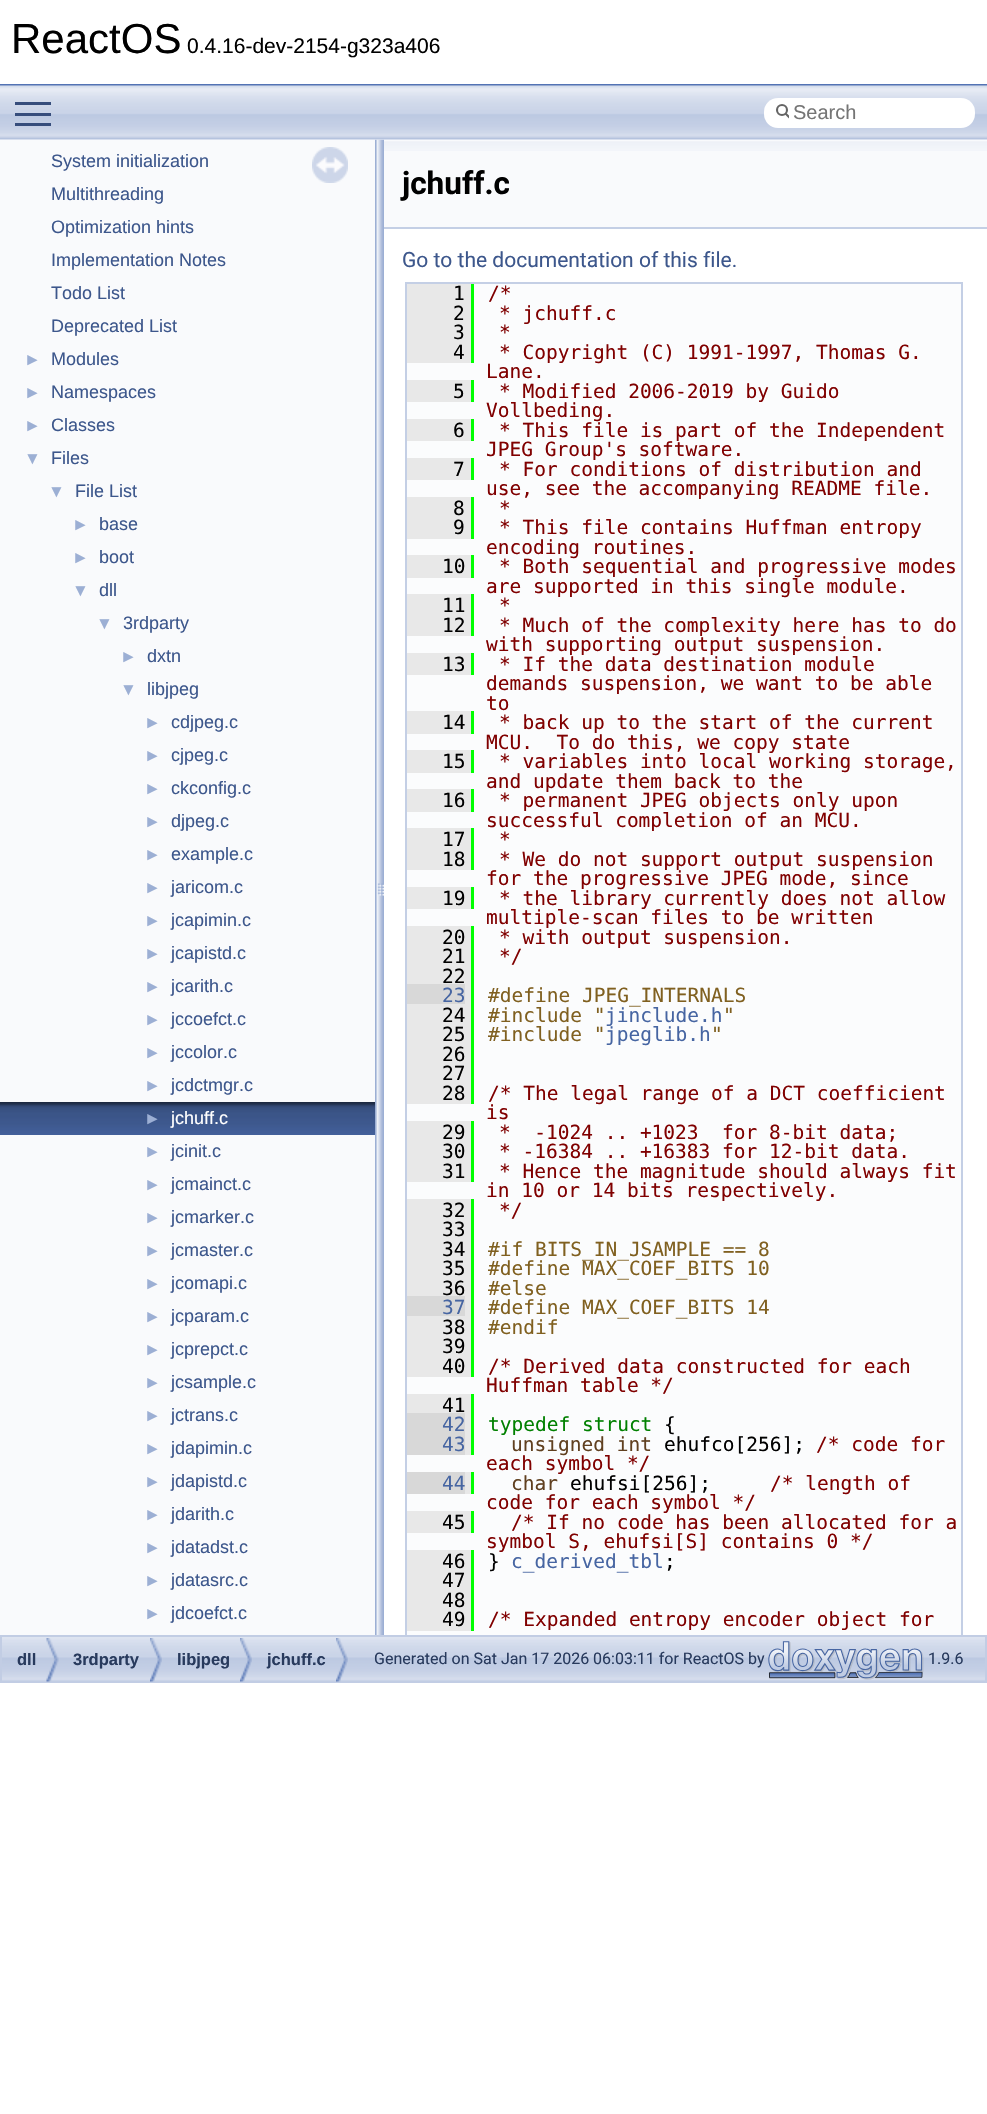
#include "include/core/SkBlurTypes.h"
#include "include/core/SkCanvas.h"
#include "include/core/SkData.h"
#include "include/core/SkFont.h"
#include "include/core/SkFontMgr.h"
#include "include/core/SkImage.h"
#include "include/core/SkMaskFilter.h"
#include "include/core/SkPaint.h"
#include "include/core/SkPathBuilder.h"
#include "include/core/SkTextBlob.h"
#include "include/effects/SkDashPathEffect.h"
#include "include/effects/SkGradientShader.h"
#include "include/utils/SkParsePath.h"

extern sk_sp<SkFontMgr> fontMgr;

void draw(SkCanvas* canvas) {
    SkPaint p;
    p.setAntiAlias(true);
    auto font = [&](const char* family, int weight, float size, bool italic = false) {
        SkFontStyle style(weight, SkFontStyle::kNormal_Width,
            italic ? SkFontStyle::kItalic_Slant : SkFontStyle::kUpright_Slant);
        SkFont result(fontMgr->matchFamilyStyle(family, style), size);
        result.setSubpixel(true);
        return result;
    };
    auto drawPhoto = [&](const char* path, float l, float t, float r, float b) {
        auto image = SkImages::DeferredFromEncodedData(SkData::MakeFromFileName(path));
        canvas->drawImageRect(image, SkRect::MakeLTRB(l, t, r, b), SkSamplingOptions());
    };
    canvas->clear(0xFFFFFFFF);
    p.setColor(0xFF5373B4);
    canvas->drawRect(SkRect::MakeLTRB(0, 84, 987, 86), p);
    auto font1 = font("Liberation Sans", 400, 42);
    p.setColor(0xFF000000);
    canvas->drawString("ReactOS", 11, 53, font1, p);
    auto font2 = font("Liberation Sans", 400, 21);
    canvas->drawString("0.4.16-dev-2154-g323a406", 187, 53, font2, p);
    drawPhoto("media/4.png", 375, 139, 384, 1635);
    drawPhoto("media/1.png", 0, 85, 987, 140);
    {
        const struct { float l, t, r, b; SkColor color; } items[] = {
            {15, 113, 51, 116, 0xFF364D7C},
            {15, 102, 51, 105, 0xFF364D7C},
            {15, 123, 51, 126, 0xFF364D7C},
        };
        for (auto [l, t, r, b, color] : items) {
            p.setColor(color);
            canvas->drawRect(SkRect::MakeLTRB(l, t, r, b), p);
        }
    }
    p.setColor(0xFFFFFFFF);
    canvas->drawRoundRect(SkRect::MakeLTRB(764, 98, 975, 128), 14, 14, p);
    p.setStyle(SkPaint::kStroke_Style);
    p.setStrokeWidth(2.1f);
    p.setColor(0xFF656565);
    canvas->drawCircle(782, 110, 5, p);
    canvas->save();
    canvas->clipRect(SkRect::MakeLTRB(774, 98, 789, 126));
    p.setStrokeCap(SkPaint::kRound_Cap);
    canvas->drawPath(SkPathBuilder().moveTo(786, 114).lineTo(790.5f, 118.5f).detach(), p);
    canvas->restore();
    auto font3 = font("Liberation Sans", 400, 20);
    p.setStyle(SkPaint::kFill_Style);
    p.setColor(0xFF757575);
    canvas->drawString("Search", 793, 119, font3, p);
    p.setColor(0xFFF9FAFC);
    canvas->drawRect(SkRect::MakeLTRB(0, 140, 375, 1635), p);
    auto font4 = font("Liberation Sans", 400, 18);
    p.setColor(0xFF3D578C);
    {
        const struct { const char* s; float x, y; } items[] = {
            {"System initialization", 51, 167},
            {"Multithreading", 51, 200},
            {"Optimization hints", 51, 233},
            {"Implementation Notes", 51, 266},
            {"Todo List", 51, 299},
            {"Deprecated List", 51, 332},
        };
        for (auto [s, x, y] : items) {
            canvas->drawString(s, x, y, font4, p);
        }
    }
    auto font5 = font("Liberation Sans", 400, 17);
    p.setColor(0xFF9CAFD4);
    canvas->drawString("►", 24, 365, font5, p);
    p.setColor(0xFF3D578C);
    canvas->drawString("Modules", 51, 365, font4, p);
    p.setColor(0xFF9CAFD4);
    canvas->drawString("►", 24, 398, font5, p);
    p.setColor(0xFF3D578C);
    canvas->drawString("Namespaces", 51, 398, font4, p);
    p.setColor(0xFF9CAFD4);
    canvas->drawString("►", 24, 431, font5, p);
    p.setColor(0xFF3D578C);
    canvas->drawString("Classes", 51, 431, font4, p);
    p.setColor(0xFF9CAFD4);
    canvas->drawString("▼", 24, 464, font5, p);
    p.setColor(0xFF3D578C);
    canvas->drawString("Files", 51, 464, font4, p);
    p.setColor(0xFF9CAFD4);
    canvas->drawString("▼", 48, 497, font5, p);
    p.setColor(0xFF3D578C);
    canvas->drawString("File List", 75, 497, font4, p);
    p.setColor(0xFF9CAFD4);
    canvas->drawString("►", 72, 530, font5, p);
    p.setColor(0xFF3D578C);
    canvas->drawString("base", 99, 530, font4, p);
    p.setColor(0xFF9CAFD4);
    canvas->drawString("►", 72, 563, font5, p);
    p.setColor(0xFF3D578C);
    canvas->drawString("boot", 99, 563, font4, p);
    p.setColor(0xFF9CAFD4);
    canvas->drawString("▼", 72, 596, font5, p);
    p.setColor(0xFF3D578C);
    canvas->drawString("dll", 99, 596, font4, p);
    p.setColor(0xFF9CAFD4);
    canvas->drawString("▼", 96, 629, font5, p);
    p.setColor(0xFF3D578C);
    canvas->drawString("3rdparty", 123, 629, font4, p);
    p.setColor(0xFF9CAFD4);
    canvas->drawString("►", 120, 662, font5, p);
    p.setColor(0xFF3D578C);
    canvas->drawString("dxtn", 147, 662, font4, p);
    p.setColor(0xFF9CAFD4);
    canvas->drawString("▼", 120, 695, font5, p);
    p.setColor(0xFF3D578C);
    canvas->drawString("libjpeg", 147, 695, font4, p);
    p.setColor(0xFF9CAFD4);
    canvas->drawString("►", 144, 728, font5, p);
    p.setColor(0xFF3D578C);
    canvas->drawString("cdjpeg.c", 171, 728, font4, p);
    p.setColor(0xFF9CAFD4);
    canvas->drawString("►", 144, 761, font5, p);
    p.setColor(0xFF3D578C);
    canvas->drawString("cjpeg.c", 171, 761, font4, p);
    p.setColor(0xFF9CAFD4);
    canvas->drawString("►", 144, 794, font5, p);
    p.setColor(0xFF3D578C);
    canvas->drawString("ckconfig.c", 171, 794, font4, p);
    p.setColor(0xFF9CAFD4);
    canvas->drawString("►", 144, 827, font5, p);
    p.setColor(0xFF3D578C);
    canvas->drawString("djpeg.c", 171, 827, font4, p);
    p.setColor(0xFF9CAFD4);
    canvas->drawString("►", 144, 860, font5, p);
    p.setColor(0xFF3D578C);
    canvas->drawString("example.c", 171, 860, font4, p);
    p.setColor(0xFF9CAFD4);
    canvas->drawString("►", 144, 893, font5, p);
    p.setColor(0xFF3D578C);
    canvas->drawString("jaricom.c", 171, 893, font4, p);
    p.setColor(0xFF9CAFD4);
    canvas->drawString("►", 144, 926, font5, p);
    p.setColor(0xFF3D578C);
    canvas->drawString("jcapimin.c", 171, 926, font4, p);
    p.setColor(0xFF9CAFD4);
    canvas->drawString("►", 144, 959, font5, p);
    p.setColor(0xFF3D578C);
    canvas->drawString("jcapistd.c", 171, 959, font4, p);
    p.setColor(0xFF9CAFD4);
    canvas->drawString("►", 144, 992, font5, p);
    p.setColor(0xFF3D578C);
    canvas->drawString("jcarith.c", 171, 992, font4, p);
    p.setColor(0xFF9CAFD4);
    canvas->drawString("►", 144, 1025, font5, p);
    p.setColor(0xFF3D578C);
    canvas->drawString("jccoefct.c", 171, 1025, font4, p);
    p.setColor(0xFF9CAFD4);
    canvas->drawString("►", 144, 1058, font5, p);
    p.setColor(0xFF3D578C);
    canvas->drawString("jccolor.c", 171, 1058, font4, p);
    p.setColor(0xFF9CAFD4);
    canvas->drawString("►", 144, 1091, font5, p);
    p.setColor(0xFF3D578C);
    canvas->drawString("jcdctmgr.c", 171, 1091, font4, p);
    drawPhoto("media/2.png", 0, 1102, 375, 1135);
    p.setColor(0xFF9CAFD4);
    canvas->drawString("►", 144, 1124, font5, p);
    p.setColor(0xFFFFFFFF);
    canvas->drawString("jchuff.c", 171, 1124, font4, p);
    p.setColor(0xFF9CAFD4);
    canvas->drawString("►", 144, 1157, font5, p);
    p.setColor(0xFF3D578C);
    canvas->drawString("jcinit.c", 171, 1157, font4, p);
    p.setColor(0xFF9CAFD4);
    canvas->drawString("►", 144, 1190, font5, p);
    p.setColor(0xFF3D578C);
    canvas->drawString("jcmainct.c", 171, 1190, font4, p);
    p.setColor(0xFF9CAFD4);
    canvas->drawString("►", 144, 1223, font5, p);
    p.setColor(0xFF3D578C);
    canvas->drawString("jcmarker.c", 171, 1223, font4, p);
    p.setColor(0xFF9CAFD4);
    canvas->drawString("►", 144, 1256, font5, p);
    p.setColor(0xFF3D578C);
    canvas->drawString("jcmaster.c", 171, 1256, font4, p);
    p.setColor(0xFF9CAFD4);
    canvas->drawString("►", 144, 1289, font5, p);
    p.setColor(0xFF3D578C);
    canvas->drawString("jcomapi.c", 171, 1289, font4, p);
    p.setColor(0xFF9CAFD4);
    canvas->drawString("►", 144, 1322, font5, p);
    p.setColor(0xFF3D578C);
    canvas->drawString("jcparam.c", 171, 1322, font4, p);
    p.setColor(0xFF9CAFD4);
    canvas->drawString("►", 144, 1355, font5, p);
    p.setColor(0xFF3D578C);
    canvas->drawString("jcprepct.c", 171, 1355, font4, p);
    p.setColor(0xFF9CAFD4);
    canvas->drawString("►", 144, 1388, font5, p);
    p.setColor(0xFF3D578C);
    canvas->drawString("jcsample.c", 171, 1388, font4, p);
    p.setColor(0xFF9CAFD4);
    canvas->drawString("►", 144, 1421, font5, p);
    p.setColor(0xFF3D578C);
    canvas->drawString("jctrans.c", 171, 1421, font4, p);
    p.setColor(0xFF9CAFD4);
    canvas->drawString("►", 144, 1454, font5, p);
    p.setColor(0xFF3D578C);
    canvas->drawString("jdapimin.c", 171, 1454, font4, p);
    p.setColor(0xFF9CAFD4);
    canvas->drawString("►", 144, 1487, font5, p);
    p.setColor(0xFF3D578C);
    canvas->drawString("jdapistd.c", 171, 1487, font4, p);
    p.setColor(0xFF9CAFD4);
    canvas->drawString("►", 144, 1520, font5, p);
    p.setColor(0xFF3D578C);
    canvas->drawString("jdarith.c", 171, 1520, font4, p);
    p.setColor(0xFF9CAFD4);
    canvas->drawString("►", 144, 1553, font5, p);
    p.setColor(0xFF3D578C);
    canvas->drawString("jdatadst.c", 171, 1553, font4, p);
    p.setColor(0xFF9CAFD4);
    canvas->drawString("►", 144, 1586, font5, p);
    p.setColor(0xFF3D578C);
    canvas->drawString("jdatasrc.c", 171, 1586, font4, p);
    p.setColor(0xFF9CAFD4);
    canvas->drawString("►", 144, 1619, font5, p);
    p.setColor(0xFF3D578C);
    canvas->drawString("jdcoefct.c", 171, 1619, font4, p);
    drawPhoto("media/3.png", 312, 147, 348, 183);
    p.setColor(0xFFF9FAFC);
    canvas->drawRect(SkRect::MakeLTRB(384, 140, 987, 227), p);
    drawPhoto("media/5.png", 384, 141, 987, 151);
    p.setColor(0xFFC4CFE5);
    canvas->drawRect(SkRect::MakeLTRB(384, 227, 987, 229), p);
    auto font6 = font("Roboto", 700, 31.5f);
    p.setColor(0xFF000000);
    canvas->drawString("jchuff.c", 402, 194, font6, p);
    auto font7 = font("Roboto", 400, 21);
    p.setColor(0xFF3D578C);
    canvas->drawString("Go to the documentation of this file.", 402, 267, font7, p);
    p.setColor(0xFFFBFCFD);
    canvas->drawRect(SkRect::MakeLTRB(407, 284, 961, 1635), p);
    canvas->save();
    canvas->clipRect(SkRect::MakeLTRB(384, 140, 987, 1635));
    p.setStyle(SkPaint::kStroke_Style);
    p.setStrokeWidth(2);
    p.setStrokeCap(SkPaint::kButt_Cap);
    p.setColor(0xFFC4CFE5);
    canvas->drawRect(SkRect::MakeLTRB(406, 283, 962, 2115), p);
    canvas->restore();
    p.setStyle(SkPaint::kFill_Style);
    p.setColor(0xFFE8E8E8);
    canvas->drawRect(SkRect::MakeLTRB(407, 284, 471, 363), p);
    auto font8 = font("DejaVu Sans Mono", 400, 19.5f);
    p.setColor(0xFF000000);
    canvas->drawString("1", 453, 300, font8, p);
    p.setColor(0xFF00FF00);
    canvas->drawRect(SkRect::MakeLTRB(471, 284, 474, 363), p);
    p.setColor(0xFF800000);
    canvas->drawString("/*", 488, 300, font8, p);
    p.setColor(0xFF000000);
    canvas->drawString("2", 453, 320, font8, p);
    p.setColor(0xFF800000);
    canvas->drawString("* jchuff.c", 499, 320, font8, p);
    p.setColor(0xFF000000);
    canvas->drawString("3", 453, 339, font8, p);
    p.setColor(0xFF800000);
    canvas->drawString("*", 499, 339, font8, p);
    p.setColor(0xFF000000);
    canvas->drawString("4", 453, 359, font8, p);
    p.setColor(0xFF800000);
    canvas->drawString("* Copyright (C) 1991-1997, Thomas G.", 499, 359, font8, p);
    canvas->drawString("Lane.", 486, 378, font8, p);
    p.setColor(0xFFE8E8E8);
    canvas->drawRect(SkRect::MakeLTRB(407, 380, 471, 402), p);
    p.setColor(0xFF000000);
    canvas->drawString("5", 453, 398, font8, p);
    p.setColor(0xFF00FF00);
    canvas->drawRect(SkRect::MakeLTRB(471, 380, 474, 402), p);
    p.setColor(0xFF800000);
    canvas->drawString("* Modified 2006-2019 by Guido", 499, 398, font8, p);
    canvas->drawString("Vollbeding.", 486, 417, font8, p);
    p.setColor(0xFFE8E8E8);
    canvas->drawRect(SkRect::MakeLTRB(407, 419, 471, 441), p);
    p.setColor(0xFF000000);
    canvas->drawString("6", 453, 437, font8, p);
    p.setColor(0xFF00FF00);
    canvas->drawRect(SkRect::MakeLTRB(471, 419, 474, 441), p);
    p.setColor(0xFF800000);
    canvas->drawString("* This file is part of the Independent", 499, 437, font8, p);
    canvas->drawString("JPEG Group's software.", 486, 456, font8, p);
    p.setColor(0xFFE8E8E8);
    canvas->drawRect(SkRect::MakeLTRB(407, 458, 471, 480), p);
    p.setColor(0xFF000000);
    canvas->drawString("7", 453, 476, font8, p);
    p.setColor(0xFF00FF00);
    canvas->drawRect(SkRect::MakeLTRB(471, 458, 474, 480), p);
    p.setColor(0xFF800000);
    canvas->drawString("* For conditions of distribution and", 499, 476, font8, p);
    canvas->drawString("use, see the accompanying README file.", 486, 495, font8, p);
    p.setColor(0xFFE8E8E8);
    canvas->drawRect(SkRect::MakeLTRB(407, 497, 471, 539), p);
    p.setColor(0xFF000000);
    canvas->drawString("8", 453, 515, font8, p);
    p.setColor(0xFF00FF00);
    canvas->drawRect(SkRect::MakeLTRB(471, 497, 474, 539), p);
    p.setColor(0xFF800000);
    canvas->drawString("*", 499, 515, font8, p);
    p.setColor(0xFF000000);
    canvas->drawString("9", 453, 534, font8, p);
    p.setColor(0xFF800000);
    canvas->drawString("* This file contains Huffman entropy", 499, 534, font8, p);
    canvas->drawString("encoding routines.", 486, 554, font8, p);
    p.setColor(0xFFE8E8E8);
    canvas->drawRect(SkRect::MakeLTRB(407, 555, 471, 578), p);
    p.setColor(0xFF000000);
    canvas->drawString("10", 442, 573, font8, p);
    p.setColor(0xFF00FF00);
    canvas->drawRect(SkRect::MakeLTRB(471, 555, 474, 578), p);
    p.setColor(0xFF800000);
    canvas->drawString("* Both sequential and progressive modes", 499, 573, font8, p);
    canvas->drawString("are supported in this single module.", 486, 593, font8, p);
    p.setColor(0xFFE8E8E8);
    canvas->drawRect(SkRect::MakeLTRB(407, 594, 471, 636), p);
    p.setColor(0xFF000000);
    canvas->drawString("11", 442, 612, font8, p);
    p.setColor(0xFF00FF00);
    canvas->drawRect(SkRect::MakeLTRB(471, 594, 474, 636), p);
    p.setColor(0xFF800000);
    canvas->drawString("*", 499, 612, font8, p);
    p.setColor(0xFF000000);
    canvas->drawString("12", 442, 632, font8, p);
    p.setColor(0xFF800000);
    canvas->drawString("* Much of the complexity here has to do", 499, 632, font8, p);
    canvas->drawString("with supporting output suspension.", 486, 651, font8, p);
    p.setColor(0xFFE8E8E8);
    canvas->drawRect(SkRect::MakeLTRB(407, 653, 471, 675), p);
    p.setColor(0xFF000000);
    canvas->drawString("13", 442, 671, font8, p);
    p.setColor(0xFF00FF00);
    canvas->drawRect(SkRect::MakeLTRB(471, 653, 474, 675), p);
    p.setColor(0xFF800000);
    {
        const struct { const char* s; float x, y; } items[] = {
            {"* If the data destination module", 499, 671},
            {"demands suspension, we want to be able", 486, 690},
            {"to", 486, 710},
        };
        for (auto [s, x, y] : items) {
            canvas->drawString(s, x, y, font8, p);
        }
    }
    p.setColor(0xFFE8E8E8);
    canvas->drawRect(SkRect::MakeLTRB(407, 711, 471, 734), p);
    p.setColor(0xFF000000);
    canvas->drawString("14", 442, 729, font8, p);
    p.setColor(0xFF00FF00);
    canvas->drawRect(SkRect::MakeLTRB(471, 711, 474, 734), p);
    p.setColor(0xFF800000);
    canvas->drawString("* back up to the start of the current", 499, 729, font8, p);
    canvas->drawString("MCU.  To do this, we copy state", 486, 749, font8, p);
    p.setColor(0xFFE8E8E8);
    canvas->drawRect(SkRect::MakeLTRB(407, 750, 471, 773), p);
    p.setColor(0xFF000000);
    canvas->drawString("15", 442, 768, font8, p);
    p.setColor(0xFF00FF00);
    canvas->drawRect(SkRect::MakeLTRB(471, 750, 474, 773), p);
    p.setColor(0xFF800000);
    canvas->drawString("* variables into local working storage,", 499, 768, font8, p);
    canvas->drawString("and update them back to the", 486, 788, font8, p);
    p.setColor(0xFFE8E8E8);
    canvas->drawRect(SkRect::MakeLTRB(407, 789, 471, 812), p);
    p.setColor(0xFF000000);
    canvas->drawString("16", 442, 807, font8, p);
    p.setColor(0xFF00FF00);
    canvas->drawRect(SkRect::MakeLTRB(471, 789, 474, 812), p);
    p.setColor(0xFF800000);
    canvas->drawString("* permanent JPEG objects only upon", 499, 807, font8, p);
    canvas->drawString("successful completion of an MCU.", 486, 827, font8, p);
    p.setColor(0xFFE8E8E8);
    canvas->drawRect(SkRect::MakeLTRB(407, 828, 471, 870), p);
    p.setColor(0xFF000000);
    canvas->drawString("17", 442, 846, font8, p);
    p.setColor(0xFF00FF00);
    canvas->drawRect(SkRect::MakeLTRB(471, 828, 474, 870), p);
    p.setColor(0xFF800000);
    canvas->drawString("*", 499, 846, font8, p);
    p.setColor(0xFF000000);
    canvas->drawString("18", 442, 866, font8, p);
    p.setColor(0xFF800000);
    canvas->drawString("* We do not support output suspension", 499, 866, font8, p);
    canvas->drawString("for the progressive JPEG mode, since", 486, 885, font8, p);
    p.setColor(0xFFE8E8E8);
    canvas->drawRect(SkRect::MakeLTRB(407, 887, 471, 909), p);
    p.setColor(0xFF000000);
    canvas->drawString("19", 442, 905, font8, p);
    p.setColor(0xFF00FF00);
    canvas->drawRect(SkRect::MakeLTRB(471, 887, 474, 909), p);
    p.setColor(0xFF800000);
    canvas->drawString("* the library currently does not allow", 499, 905, font8, p);
    canvas->drawString("multiple-scan files to be written", 486, 924, font8, p);
    p.setColor(0xFFE8E8E8);
    canvas->drawRect(SkRect::MakeLTRB(407, 926, 471, 984), p);
    p.setColor(0xFF000000);
    canvas->drawString("20", 442, 944, font8, p);
    p.setColor(0xFF00FF00);
    canvas->drawRect(SkRect::MakeLTRB(471, 926, 474, 1104), p);
    p.setColor(0xFF800000);
    canvas->drawString("* with output suspension.", 499, 944, font8, p);
    p.setColor(0xFF000000);
    canvas->drawString("21", 442, 963, font8, p);
    p.setColor(0xFF800000);
    canvas->drawString("*/", 499, 963, font8, p);
    p.setColor(0xFF000000);
    canvas->drawString("22", 442, 983, font8, p);
    p.setColor(0xFFD8D8D8);
    canvas->drawRect(SkRect::MakeLTRB(407, 984, 465, 1004), p);
    p.setColor(0xFF4665A2);
    canvas->drawString("23", 442, 1002, font8, p);
    p.setColor(0xFFE8E8E8);
    canvas->drawRect(SkRect::MakeLTRB(465, 984, 471, 1004), p);
    p.setColor(0xFF806020);
    canvas->drawString("#define JPEG_INTERNALS", 488, 1002, font8, p);
    p.setColor(0xFFE8E8E8);
    canvas->drawRect(SkRect::MakeLTRB(407, 1004, 471, 1104), p);
    p.setColor(0xFF000000);
    canvas->drawString("24", 442, 1022, font8, p);
    p.setColor(0xFF806020);
    canvas->drawString("#include \"", 488, 1022, font8, p);
    p.setColor(0xFF4665A2);
    canvas->drawString("jinclude.h", 605, 1022, font8, p);
    p.setColor(0xFF806020);
    canvas->drawString("\"", 723, 1022, font8, p);
    p.setColor(0xFF000000);
    canvas->drawString("25", 442, 1041, font8, p);
    p.setColor(0xFF806020);
    canvas->drawString("#include \"", 488, 1041, font8, p);
    p.setColor(0xFF4665A2);
    canvas->drawString("jpeglib.h", 605, 1041, font8, p);
    p.setColor(0xFF806020);
    canvas->drawString("\"", 711, 1041, font8, p);
    p.setColor(0xFF000000);
    {
        const struct { const char* s; float x, y; } items[] = {
            {"26", 442, 1061},
            {"27", 442, 1080},
            {"28", 442, 1100},
        };
        for (auto [s, x, y] : items) {
            canvas->drawString(s, x, y, font8, p);
        }
    }
    p.setColor(0xFF800000);
    canvas->drawString("/* The legal range of a DCT coefficient", 488, 1100, font8, p);
    canvas->drawString("is", 486, 1119, font8, p);
    p.setColor(0xFFE8E8E8);
    canvas->drawRect(SkRect::MakeLTRB(407, 1121, 471, 1182), p);
    p.setColor(0xFF000000);
    canvas->drawString("29", 442, 1139, font8, p);
    p.setColor(0xFF00FF00);
    canvas->drawRect(SkRect::MakeLTRB(471, 1121, 474, 1182), p);
    p.setColor(0xFF800000);
    canvas->drawString("*  -1024 .. +1023  for 8-bit data;", 499, 1139, font8, p);
    p.setColor(0xFF000000);
    canvas->drawString("30", 442, 1158, font8, p);
    p.setColor(0xFF800000);
    canvas->drawString("* -16384 .. +16383 for 12-bit data.", 499, 1158, font8, p);
    p.setColor(0xFF000000);
    canvas->drawString("31", 442, 1178, font8, p);
    p.setColor(0xFF800000);
    canvas->drawString("* Hence the magnitude should always fit", 499, 1178, font8, p);
    canvas->drawString("in 10 or 14 bits respectively.", 486, 1197, font8, p);
    p.setColor(0xFFE8E8E8);
    canvas->drawRect(SkRect::MakeLTRB(407, 1199, 471, 1296), p);
    p.setColor(0xFF000000);
    canvas->drawString("32", 442, 1217, font8, p);
    p.setColor(0xFF00FF00);
    canvas->drawRect(SkRect::MakeLTRB(471, 1199, 474, 1377), p);
    p.setColor(0xFF800000);
    canvas->drawString("*/", 499, 1217, font8, p);
    p.setColor(0xFF000000);
    canvas->drawString("33", 442, 1236, font8, p);
    canvas->drawString("34", 442, 1256, font8, p);
    p.setColor(0xFF806020);
    canvas->drawString("#if BITS_IN_JSAMPLE == 8", 488, 1256, font8, p);
    p.setColor(0xFF000000);
    canvas->drawString("35", 442, 1275, font8, p);
    p.setColor(0xFF806020);
    canvas->drawString("#define MAX_COEF_BITS 10", 488, 1275, font8, p);
    p.setColor(0xFF000000);
    canvas->drawString("36", 442, 1295, font8, p);
    p.setColor(0xFF806020);
    canvas->drawString("#else", 488, 1295, font8, p);
    p.setColor(0xFFD8D8D8);
    canvas->drawRect(SkRect::MakeLTRB(407, 1296, 465, 1316), p);
    p.setColor(0xFF4665A2);
    canvas->drawString("37", 442, 1314, font8, p);
    p.setColor(0xFFE8E8E8);
    canvas->drawRect(SkRect::MakeLTRB(465, 1296, 471, 1316), p);
    p.setColor(0xFF806020);
    canvas->drawString("#define MAX_COEF_BITS 14", 488, 1314, font8, p);
    p.setColor(0xFFE8E8E8);
    canvas->drawRect(SkRect::MakeLTRB(407, 1316, 471, 1377), p);
    p.setColor(0xFF000000);
    canvas->drawString("38", 442, 1334, font8, p);
    p.setColor(0xFF806020);
    canvas->drawString("#endif", 488, 1334, font8, p);
    p.setColor(0xFF000000);
    canvas->drawString("39", 442, 1353, font8, p);
    canvas->drawString("40", 442, 1373, font8, p);
    p.setColor(0xFF800000);
    canvas->drawString("/* Derived data constructed for each", 488, 1373, font8, p);
    canvas->drawString("Huffman table */", 486, 1392, font8, p);
    p.setColor(0xFFE8E8E8);
    canvas->drawRect(SkRect::MakeLTRB(407, 1394, 471, 1413), p);
    p.setColor(0xFF000000);
    canvas->drawString("41", 442, 1412, font8, p);
    p.setColor(0xFF00FF00);
    canvas->drawRect(SkRect::MakeLTRB(471, 1394, 474, 1455), p);
    p.setColor(0xFFD8D8D8);
    canvas->drawRect(SkRect::MakeLTRB(407, 1413, 465, 1455), p);
    p.setColor(0xFF4665A2);
    canvas->drawString("42", 442, 1431, font8, p);
    p.setColor(0xFFE8E8E8);
    canvas->drawRect(SkRect::MakeLTRB(465, 1413, 471, 1455), p);
    p.setColor(0xFF008000);
    canvas->drawString("typedef struct", 488, 1431, font8, p);
    p.setColor(0xFF000000);
    canvas->drawString("{", 664, 1431, font8, p);
    p.setColor(0xFF4665A2);
    canvas->drawString("43", 442, 1451, font8, p);
    p.setColor(0xFF604020);
    canvas->drawString("unsigned int", 511, 1451, font8, p);
    p.setColor(0xFF000000);
    canvas->drawString("ehufco[256];", 664, 1451, font8, p);
    p.setColor(0xFF800000);
    canvas->drawString("/* code for", 816, 1451, font8, p);
    canvas->drawString("each symbol */", 486, 1470, font8, p);
    p.setColor(0xFFD8D8D8);
    canvas->drawRect(SkRect::MakeLTRB(407, 1472, 465, 1494), p);
    p.setColor(0xFF4665A2);
    canvas->drawString("44", 442, 1490, font8, p);
    p.setColor(0xFFE8E8E8);
    canvas->drawRect(SkRect::MakeLTRB(465, 1472, 471, 1494), p);
    p.setColor(0xFF00FF00);
    canvas->drawRect(SkRect::MakeLTRB(471, 1472, 474, 1494), p);
    p.setColor(0xFF604020);
    canvas->drawString("char", 511, 1490, font8, p);
    p.setColor(0xFF000000);
    canvas->drawString("ehufsi[256];", 570, 1490, font8, p);
    p.setColor(0xFF800000);
    canvas->drawString("/* length of", 770, 1490, font8, p);
    canvas->drawString("code for each symbol */", 486, 1509, font8, p);
    p.setColor(0xFFE8E8E8);
    canvas->drawRect(SkRect::MakeLTRB(407, 1511, 471, 1533), p);
    p.setColor(0xFF000000);
    canvas->drawString("45", 442, 1529, font8, p);
    p.setColor(0xFF00FF00);
    canvas->drawRect(SkRect::MakeLTRB(471, 1511, 474, 1533), p);
    p.setColor(0xFF800000);
    canvas->drawString("/* If no code has been allocated for a", 511, 1529, font8, p);
    canvas->drawString("symbol S, ehufsi[S] contains 0 */", 486, 1548, font8, p);
    p.setColor(0xFFE8E8E8);
    canvas->drawRect(SkRect::MakeLTRB(407, 1550, 471, 1631), p);
    p.setColor(0xFF000000);
    canvas->drawString("46", 442, 1568, font8, p);
    p.setColor(0xFF00FF00);
    canvas->drawRect(SkRect::MakeLTRB(471, 1550, 474, 1631), p);
    p.setColor(0xFF000000);
    canvas->drawString("}", 488, 1568, font8, p);
    p.setColor(0xFF4665A2);
    canvas->drawString("c_derived_tbl", 511, 1568, font8, p);
    p.setColor(0xFF000000);
    {
        const struct { const char* s; float x, y; } items[] = {
            {";", 664, 1568},
            {"47", 442, 1587},
            {"48", 442, 1607},
            {"49", 442, 1626},
        };
        for (auto [s, x, y] : items) {
            canvas->drawString(s, x, y, font8, p);
        }
    }
    p.setColor(0xFF800000);
    canvas->drawString("/* Expanded entropy encoder object for", 488, 1626, font8, p);
    drawPhoto("media/6.png", 2, 1637, 985, 1681);
    p.setStyle(SkPaint::kStroke_Style);
    p.setColor(0xFFC2CDE4);
    canvas->drawRect(SkRect::MakeLTRB(1, 1636, 986, 1682), p);
    drawPhoto("media/7.png", 46, 1638, 59, 1682);
    auto font9 = font("Liberation Sans", 700, 16.5f);
    p.setStyle(SkPaint::kFill_Style);
    p.setColor(0xFF283A5D);
    canvas->drawString("dll", 17, 1665, font9, p);
    drawPhoto("media/8.png", 150, 1638, 162, 1682);
    canvas->drawString("3rdparty", 73, 1665, font9, p);
    drawPhoto("media/8.png", 240, 1638, 252, 1682);
    canvas->drawString("libjpeg", 177, 1665, font9, p);
    drawPhoto("media/9.png", 336, 1638, 348, 1682);
    canvas->drawString("jchuff.c", 267, 1665, font9, p);
    auto font10 = font("Roboto", 400, 16);
    canvas->drawString("Generated on Sat Jan 17 2026 06:03:11 for ReactOS by", 374, 1664, font10, p);
    drawPhoto("media/10.png", 768, 1641, 924, 1680);
    canvas->drawString("1.9.6", 928, 1664, font10, p);
}
